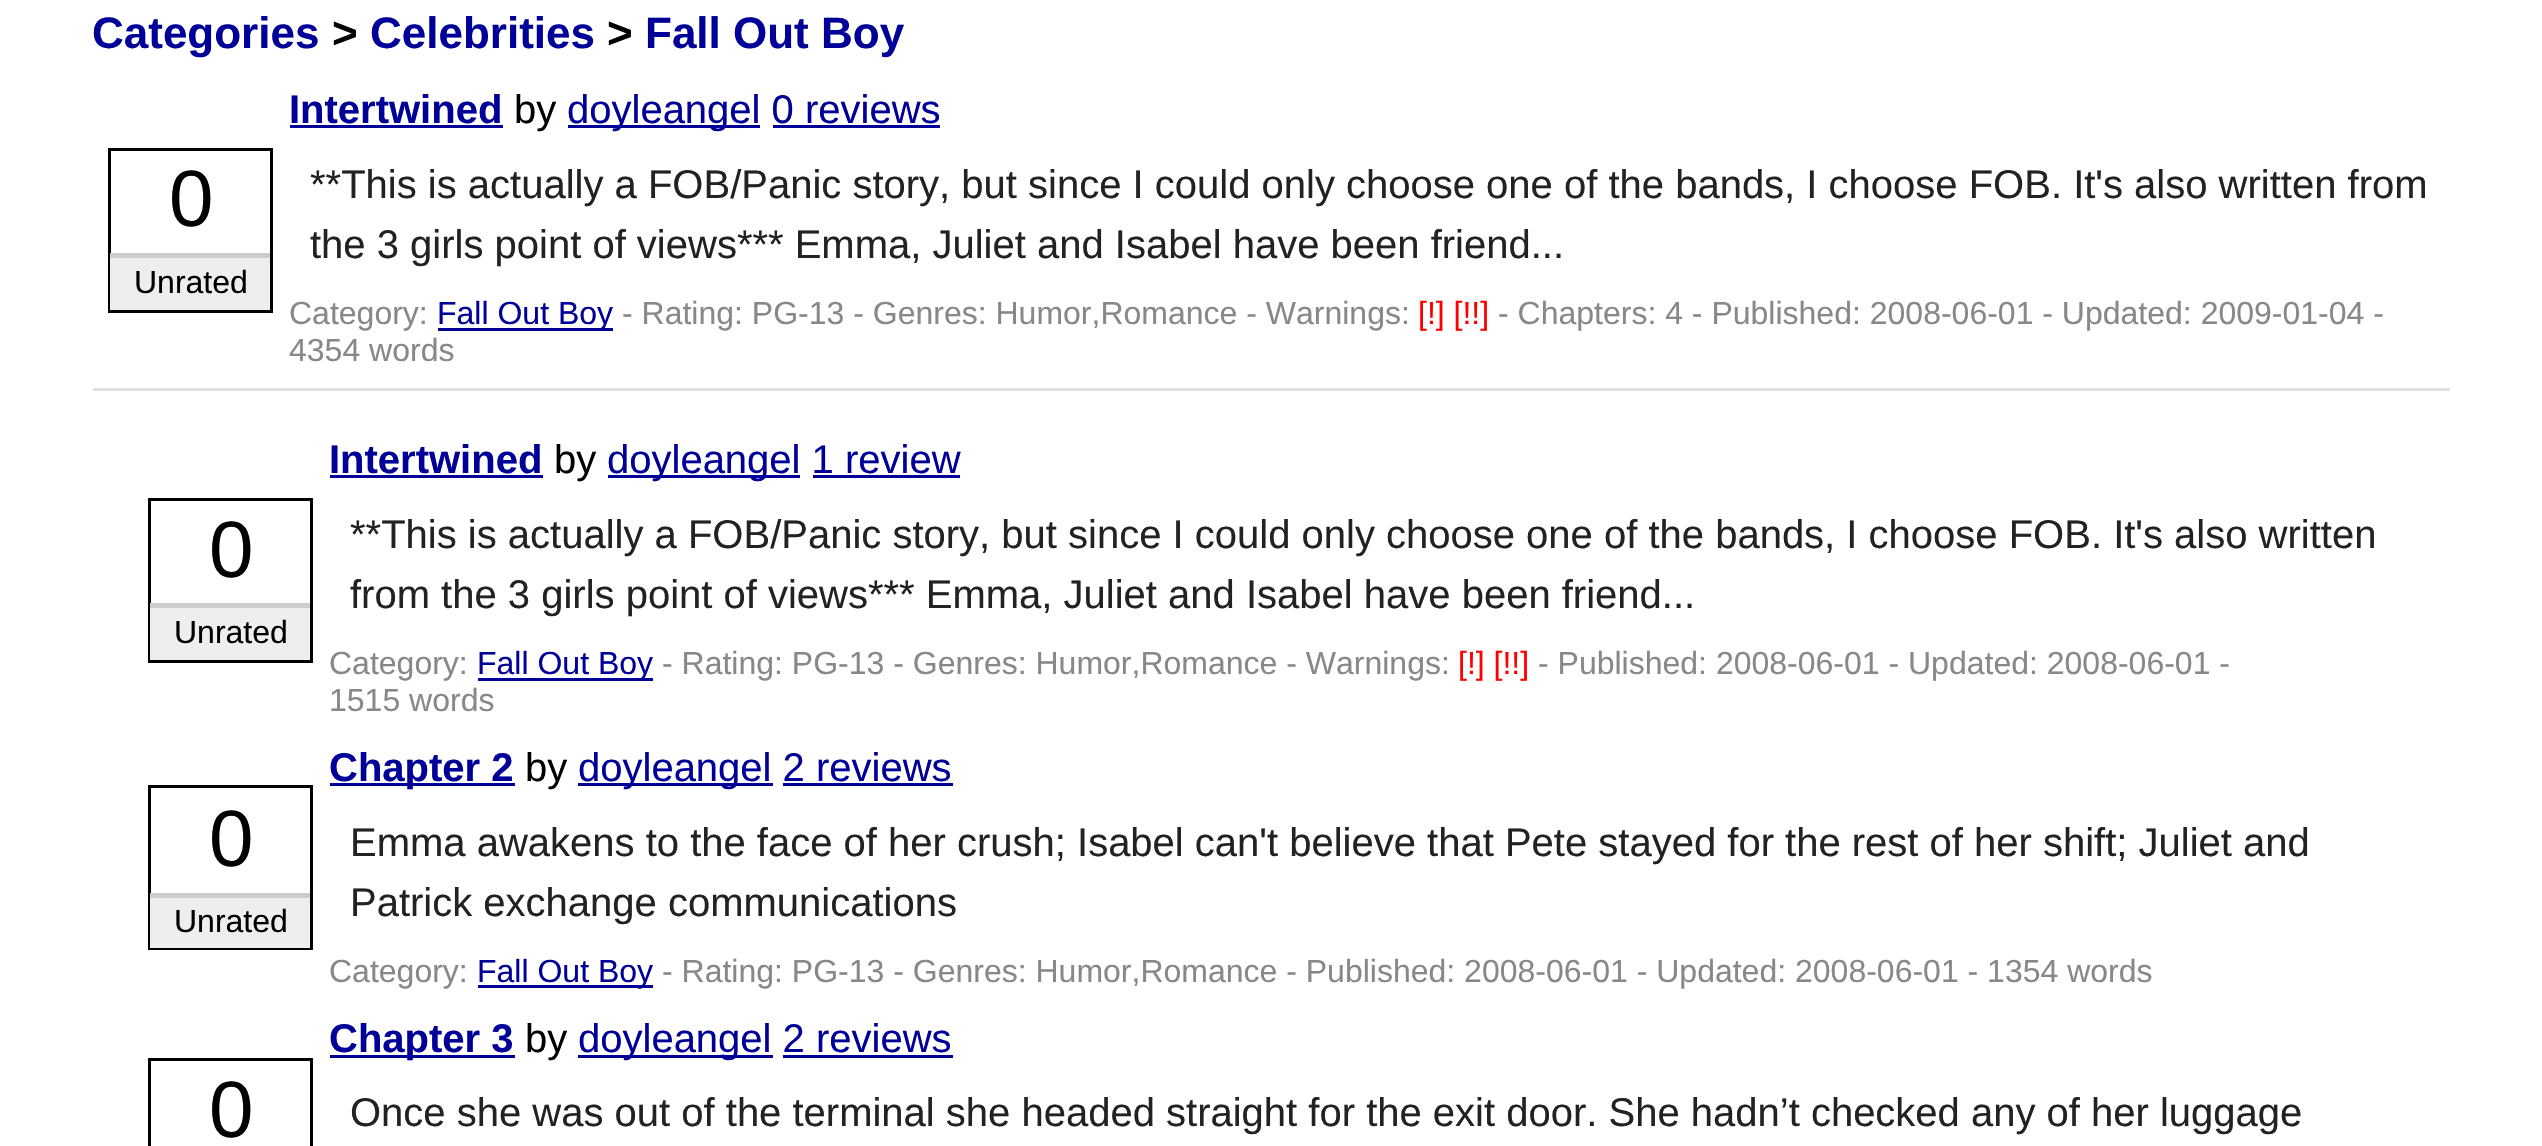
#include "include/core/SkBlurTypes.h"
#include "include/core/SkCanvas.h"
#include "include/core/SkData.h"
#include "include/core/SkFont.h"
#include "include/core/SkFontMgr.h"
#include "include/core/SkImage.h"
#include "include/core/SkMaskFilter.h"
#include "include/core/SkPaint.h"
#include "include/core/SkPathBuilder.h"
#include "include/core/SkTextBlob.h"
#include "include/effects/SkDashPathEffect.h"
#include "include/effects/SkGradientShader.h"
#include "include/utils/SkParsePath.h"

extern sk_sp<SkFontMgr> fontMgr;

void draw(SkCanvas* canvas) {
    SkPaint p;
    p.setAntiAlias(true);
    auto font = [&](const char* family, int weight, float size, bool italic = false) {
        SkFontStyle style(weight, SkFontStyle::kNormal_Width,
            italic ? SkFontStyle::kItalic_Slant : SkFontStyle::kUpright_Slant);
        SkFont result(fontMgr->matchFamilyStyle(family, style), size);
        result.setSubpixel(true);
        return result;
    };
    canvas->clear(0xFFFFFFFF);
    auto font1 = font("Liberation Sans", 700, 44);
    p.setColor(0xFF000099);
    canvas->drawString("Categories", 92, 48, font1, p);
    p.setColor(0xFF000000);
    canvas->drawString(">", 332, 48, font1, p);
    p.setColor(0xFF000099);
    canvas->drawString("Celebrities", 370, 48, font1, p);
    p.setColor(0xFF000000);
    canvas->drawString(">", 607, 48, font1, p);
    p.setColor(0xFF000099);
    canvas->drawString("Fall Out Boy", 645, 48, font1, p);
    p.setColor(0xFFE0E0E0);
    canvas->drawRect(SkRect::MakeLTRB(93, 388, 2450, 391), p);
    auto font2 = font("Liberation Sans", 700, 40);
    p.setColor(0xFF000099);
    canvas->drawString("Intertwined", 289, 123, font2, p);
    canvas->drawRect(SkRect::MakeLTRB(290, 125, 503, 128), p);
    auto font3 = font("Liberation Sans", 400, 40);
    p.setColor(0xFF000000);
    canvas->drawString("by", 514, 123, font3, p);
    p.setColor(0xFF000099);
    canvas->drawRect(SkRect::MakeLTRB(568, 125, 760, 128), p);
    canvas->drawString("doyleangel 0 reviews", 567, 123, font3, p);
    canvas->drawRect(SkRect::MakeLTRB(773, 125, 940, 128), p);
    p.setStyle(SkPaint::kStroke_Style);
    p.setStrokeWidth(3);
    p.setColor(0xFF000000);
    canvas->drawRect(SkRect::MakeLTRB(109.5f, 149.5f, 271.5f, 311.5f), p);
    auto font4 = font("Liberation Sans", 400, 80);
    p.setStyle(SkPaint::kFill_Style);
    canvas->drawString("0", 169, 226, font4, p);
    p.setColor(0xFFEEEEEE);
    canvas->drawRect(SkRect::MakeLTRB(110, 258, 270, 310), p);
    p.setColor(0xFFCCCCCC);
    canvas->drawRect(SkRect::MakeLTRB(110, 253, 270, 258), p);
    auto font5 = font("Liberation Sans", 400, 32);
    p.setColor(0xFF000000);
    canvas->drawString("Unrated", 134, 293, font5, p);
    p.setColor(0xFF222222);
    canvas->drawString("**This is actually a FOB/Panic story, but since I could only choose one of the bands, I choose FOB. It's also written from", 310, 198, font3, p);
    canvas->drawString("the 3 girls point of views*** Emma, Juliet and Isabel have been friend...", 310, 258, font3, p);
    p.setColor(0xFF888888);
    canvas->drawString("Category:", 289, 324, font5, p);
    p.setColor(0xFF000099);
    canvas->drawRect(SkRect::MakeLTRB(438, 328, 613, 331), p);
    canvas->drawString("Fall Out Boy", 437, 324, font5, p);
    p.setColor(0xFF888888);
    canvas->drawString("- Rating: PG-13 - Genres: Humor,Romance - Warnings:", 622, 324, font5, p);
    p.setColor(0xFFFF0000);
    canvas->drawString("[!] [!!]", 1418, 324, font5, p);
    p.setColor(0xFF888888);
    canvas->drawString("- Chapters: 4 - Published: 2008-06-01 - Updated: 2009-01-04 -", 1498, 324, font5, p);
    canvas->drawString("4354 words", 289, 361, font5, p);
    p.setColor(0xFF000099);
    canvas->drawString("Intertwined", 329, 473, font2, p);
    canvas->drawRect(SkRect::MakeLTRB(330, 475, 543, 478), p);
    p.setColor(0xFF000000);
    canvas->drawString("by", 554, 473, font3, p);
    p.setColor(0xFF000099);
    canvas->drawRect(SkRect::MakeLTRB(608, 475, 800, 478), p);
    canvas->drawString("doyleangel 1 review", 607, 473, font3, p);
    canvas->drawRect(SkRect::MakeLTRB(813, 475, 960, 478), p);
    p.setStyle(SkPaint::kStroke_Style);
    p.setColor(0xFF000000);
    canvas->drawRect(SkRect::MakeLTRB(149.5f, 499.5f, 311.5f, 661.5f), p);
    p.setStyle(SkPaint::kFill_Style);
    canvas->drawString("0", 209, 577, font4, p);
    p.setColor(0xFFEEEEEE);
    canvas->drawRect(SkRect::MakeLTRB(150, 608, 310, 660), p);
    p.setColor(0xFFCCCCCC);
    canvas->drawRect(SkRect::MakeLTRB(150, 603, 310, 608), p);
    p.setColor(0xFF000000);
    canvas->drawString("Unrated", 174, 643, font5, p);
    p.setColor(0xFF222222);
    canvas->drawString("**This is actually a FOB/Panic story, but since I could only choose one of the bands, I choose FOB. It's also written", 350, 548, font3, p);
    canvas->drawString("from the 3 girls point of views*** Emma, Juliet and Isabel have been friend...", 350, 608, font3, p);
    p.setColor(0xFF888888);
    canvas->drawString("Category:", 329, 674, font5, p);
    p.setColor(0xFF000099);
    canvas->drawRect(SkRect::MakeLTRB(478, 678, 653, 681), p);
    canvas->drawString("Fall Out Boy", 477, 674, font5, p);
    p.setColor(0xFF888888);
    canvas->drawString("- Rating: PG-13 - Genres: Humor,Romance - Warnings:", 662, 674, font5, p);
    p.setColor(0xFFFF0000);
    canvas->drawString("[!] [!!]", 1458, 674, font5, p);
    p.setColor(0xFF888888);
    canvas->drawString("- Published: 2008-06-01 - Updated: 2008-06-01 -", 1538, 674, font5, p);
    canvas->drawString("1515 words", 329, 711, font5, p);
    p.setColor(0xFF000099);
    canvas->drawRect(SkRect::MakeLTRB(330, 783, 515, 786), p);
    canvas->drawString("Chapter 2", 329, 781, font2, p);
    p.setColor(0xFF000000);
    canvas->drawString("by", 525, 781, font3, p);
    p.setColor(0xFF000099);
    canvas->drawRect(SkRect::MakeLTRB(578, 783, 773, 786), p);
    canvas->drawString("doyleangel 2 reviews", 578, 781, font3, p);
    canvas->drawRect(SkRect::MakeLTRB(783, 783, 953, 786), p);
    p.setStyle(SkPaint::kStroke_Style);
    p.setColor(0xFF000000);
    canvas->drawRect(SkRect::MakeLTRB(149.5f, 786.5f, 311.5f, 948.5f), p);
    p.setStyle(SkPaint::kFill_Style);
    canvas->drawString("0", 209, 866, font4, p);
    p.setColor(0xFFEEEEEE);
    canvas->drawRect(SkRect::MakeLTRB(150, 898, 310, 948), p);
    p.setColor(0xFFCCCCCC);
    canvas->drawRect(SkRect::MakeLTRB(150, 893, 310, 898), p);
    p.setColor(0xFF000000);
    canvas->drawString("Unrated", 174, 932, font5, p);
    p.setColor(0xFF222222);
    canvas->drawString("Emma awakens to the face of her crush; Isabel can't believe that Pete stayed for the rest of her shift; Juliet and", 350, 856, font3, p);
    canvas->drawString("Patrick exchange communications", 350, 916, font3, p);
    p.setColor(0xFF888888);
    canvas->drawString("Category:", 329, 982, font5, p);
    p.setColor(0xFF000099);
    canvas->drawRect(SkRect::MakeLTRB(478, 985, 653, 988), p);
    canvas->drawString("Fall Out Boy", 477, 982, font5, p);
    p.setColor(0xFF888888);
    canvas->drawString("- Rating: PG-13 - Genres: Humor,Romance - Published: 2008-06-01 - Updated: 2008-06-01 - 1354 words", 662, 982, font5, p);
    p.setColor(0xFF000099);
    canvas->drawRect(SkRect::MakeLTRB(330, 1055, 515, 1058), p);
    canvas->drawString("Chapter 3", 329, 1052, font2, p);
    p.setColor(0xFF000000);
    canvas->drawString("by", 525, 1052, font3, p);
    p.setColor(0xFF000099);
    canvas->drawRect(SkRect::MakeLTRB(578, 1055, 773, 1058), p);
    canvas->drawString("doyleangel 2 reviews", 578, 1052, font3, p);
    canvas->drawRect(SkRect::MakeLTRB(783, 1055, 953, 1058), p);
    p.setStyle(SkPaint::kStroke_Style);
    p.setColor(0xFF000000);
    canvas->drawRect(SkRect::MakeLTRB(149.5f, 1059.5f, 311.5f, 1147.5f), p);
    p.setStyle(SkPaint::kFill_Style);
    canvas->drawString("0", 209, 1137, font4, p);
    p.setColor(0xFF222222);
    canvas->drawString("Once she was out of the terminal she headed straight for the exit door. She hadn’t checked any of her luggage", 350, 1126, font3, p);
}
